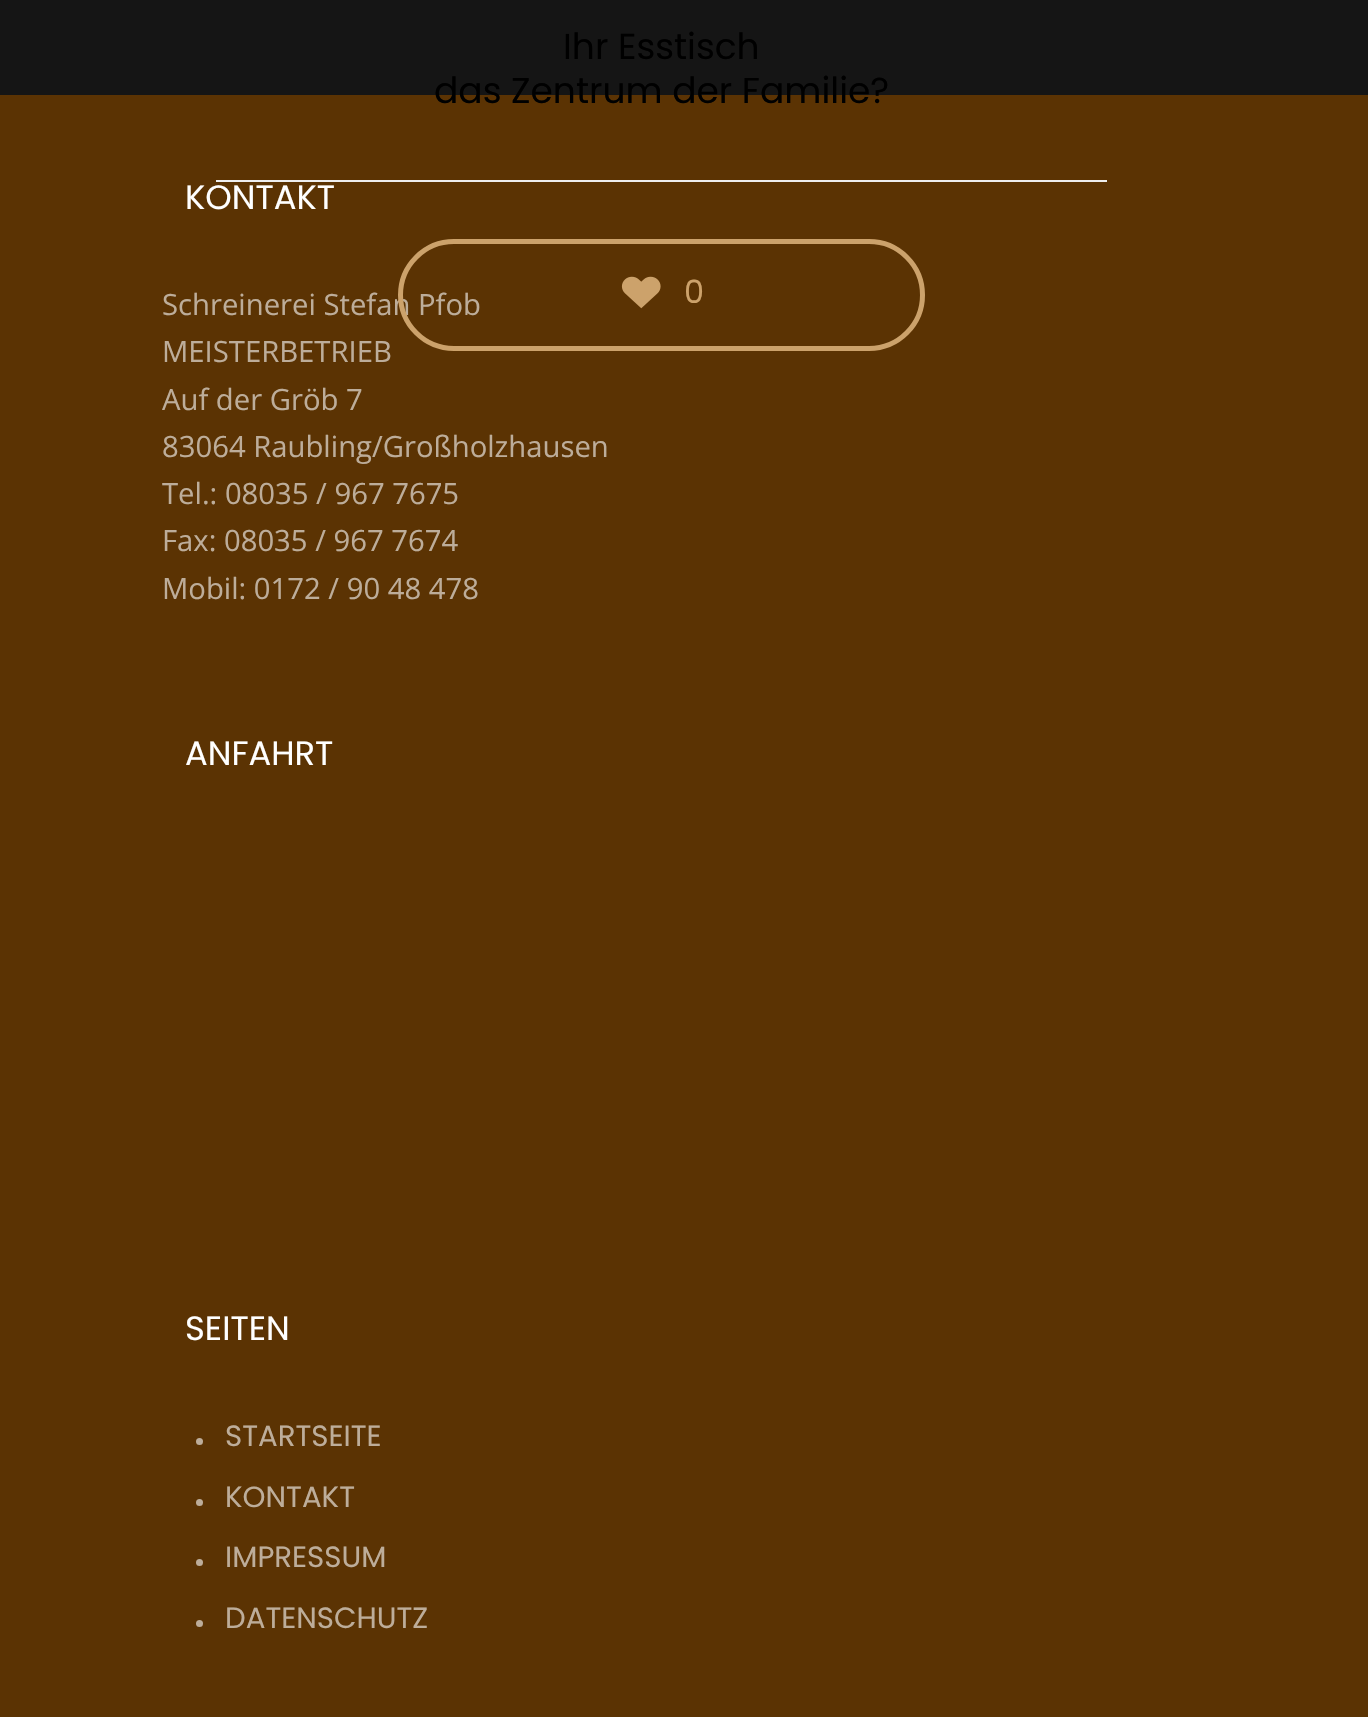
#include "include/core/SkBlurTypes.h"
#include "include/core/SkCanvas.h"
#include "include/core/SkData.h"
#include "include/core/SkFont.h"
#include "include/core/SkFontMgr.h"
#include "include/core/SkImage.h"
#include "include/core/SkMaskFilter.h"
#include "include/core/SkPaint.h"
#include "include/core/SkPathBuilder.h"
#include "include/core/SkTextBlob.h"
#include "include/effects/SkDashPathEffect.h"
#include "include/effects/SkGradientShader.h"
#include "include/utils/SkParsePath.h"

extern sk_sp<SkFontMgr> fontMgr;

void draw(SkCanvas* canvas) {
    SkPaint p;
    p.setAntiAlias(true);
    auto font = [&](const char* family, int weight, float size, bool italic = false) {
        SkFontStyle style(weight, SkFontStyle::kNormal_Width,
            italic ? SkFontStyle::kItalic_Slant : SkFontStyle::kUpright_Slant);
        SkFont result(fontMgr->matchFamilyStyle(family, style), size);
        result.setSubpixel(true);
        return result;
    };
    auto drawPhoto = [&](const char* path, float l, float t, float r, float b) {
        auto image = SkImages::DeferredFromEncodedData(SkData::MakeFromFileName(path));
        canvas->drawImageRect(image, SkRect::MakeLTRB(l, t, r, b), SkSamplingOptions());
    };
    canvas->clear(0xFF151515);
    p.setColor(0xFF5B3303);
    canvas->drawRect(SkRect::MakeLTRB(0, 95, 1368, 1717), p);
    auto font1 = font("Poppins", 400, 33.75f);
    p.setColor(0xFFFFFFFF);
    canvas->drawString("KONTAKT", 185, 209, font1, p);
    auto font2 = font("Open Sans", 400, 29.25f);
    p.setColor(0xFFBDAD9A);
    {
        const struct { const char* s; float x, y; } items[] = {
            {"Schreinerei Stefan Pfob", 162, 315},
            {"MEISTERBETRIEB", 162, 362},
            {"Auf der Gröb 7", 162, 410},
            {"83064 Raubling/Großholzhausen", 162, 457},
            {"Tel.: 08035 / 967 7675", 162, 504},
            {"Fax: 08035 / 967 7674", 162, 551},
            {"Mobil: 0172 / 90 48 478", 162, 599},
        };
        for (auto [s, x, y] : items) {
            canvas->drawString(s, x, y, font2, p);
        }
    }
    p.setColor(0xFFFFFFFF);
    canvas->drawString("ANFAHRT", 185, 765, font1, p);
    canvas->drawString("SEITEN", 185, 1340, font1, p);
    p.setColor(0xFFBDAD9A);
    canvas->drawCircle(199.5f, 1441.5f, 3.5f, p);
    auto font3 = font("Poppins", 400, 29.25f);
    canvas->drawString("STARTSEITE", 225, 1446, font3, p);
    canvas->drawCircle(199.5f, 1502.5f, 3.5f, p);
    canvas->drawString("KONTAKT", 225, 1507, font3, p);
    canvas->drawCircle(199.5f, 1562.5f, 3.5f, p);
    canvas->drawString("IMPRESSUM", 225, 1567, font3, p);
    canvas->drawCircle(199.5f, 1623.5f, 3.5f, p);
    canvas->drawString("DATENSCHUTZ", 225, 1628, font3, p);
    auto font4 = font("Poppins", 400, 36);
    p.setColor(0xFF000000);
    canvas->drawString("Ihr Esstisch", 563, 59, font4, p);
    canvas->drawString("das Zentrum der Familie?", 434, 103, font4, p);
    p.setColor(0xFFEEEEEE);
    canvas->drawRect(SkRect::MakeLTRB(216, 180, 1107, 182), p);
    p.setStyle(SkPaint::kStroke_Style);
    p.setStrokeWidth(5);
    p.setColor(0xFFCCA26B);
    canvas->drawRoundRect(SkRect::MakeLTRB(400.5f, 241.5f, 922.5f, 348.5f), 53.5f, 53.5f, p);
    drawPhoto("media/1.png", 621, 276, 661, 309);
    auto font5 = font("Poppins", 400, 32);
    p.setStyle(SkPaint::kFill_Style);
    canvas->drawString("0", 684, 303, font5, p);
}
